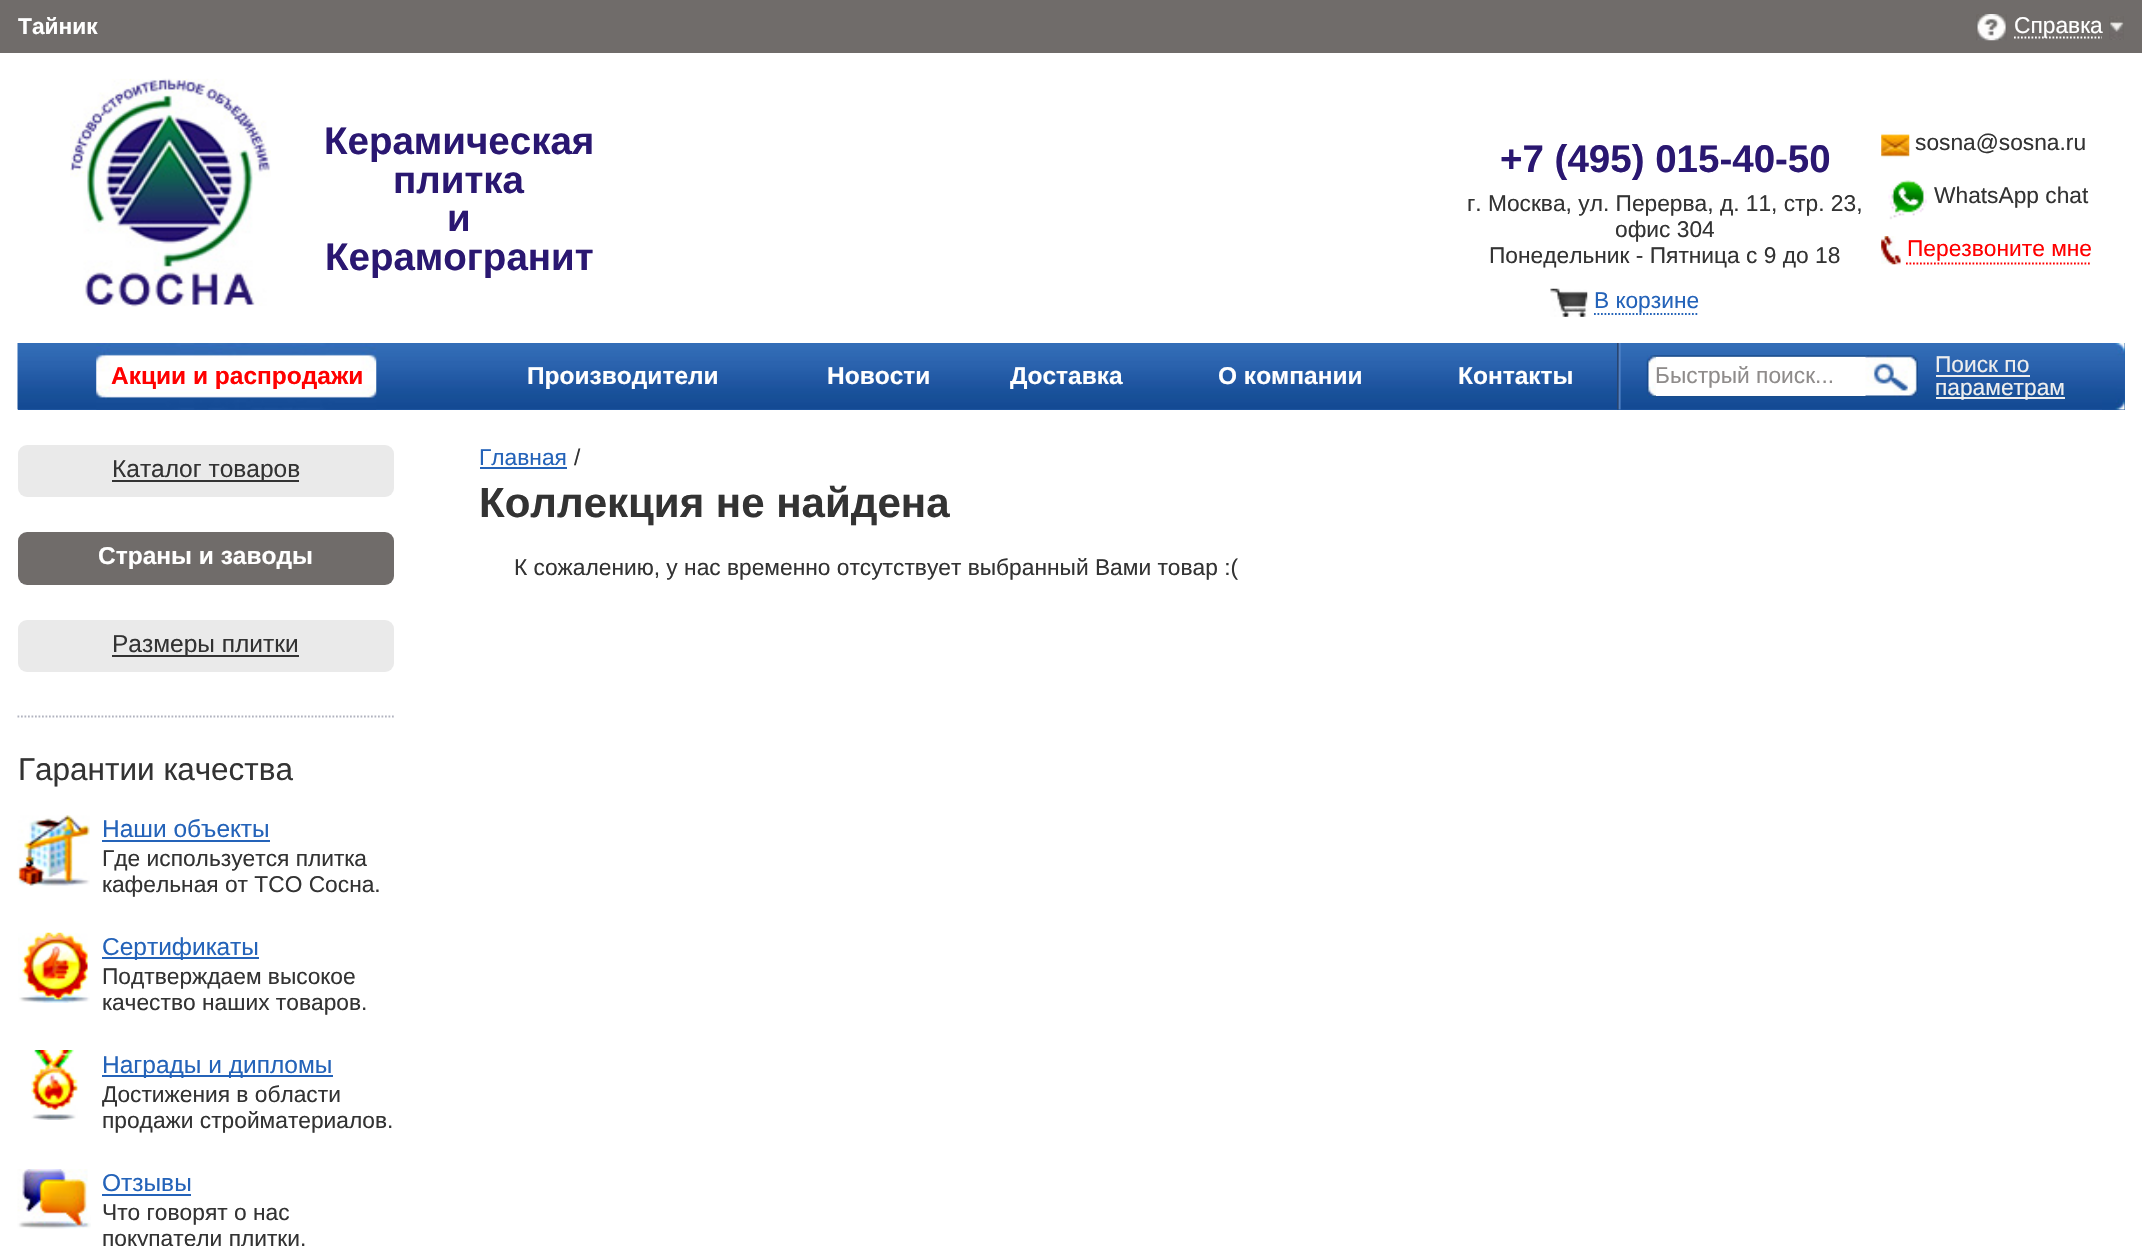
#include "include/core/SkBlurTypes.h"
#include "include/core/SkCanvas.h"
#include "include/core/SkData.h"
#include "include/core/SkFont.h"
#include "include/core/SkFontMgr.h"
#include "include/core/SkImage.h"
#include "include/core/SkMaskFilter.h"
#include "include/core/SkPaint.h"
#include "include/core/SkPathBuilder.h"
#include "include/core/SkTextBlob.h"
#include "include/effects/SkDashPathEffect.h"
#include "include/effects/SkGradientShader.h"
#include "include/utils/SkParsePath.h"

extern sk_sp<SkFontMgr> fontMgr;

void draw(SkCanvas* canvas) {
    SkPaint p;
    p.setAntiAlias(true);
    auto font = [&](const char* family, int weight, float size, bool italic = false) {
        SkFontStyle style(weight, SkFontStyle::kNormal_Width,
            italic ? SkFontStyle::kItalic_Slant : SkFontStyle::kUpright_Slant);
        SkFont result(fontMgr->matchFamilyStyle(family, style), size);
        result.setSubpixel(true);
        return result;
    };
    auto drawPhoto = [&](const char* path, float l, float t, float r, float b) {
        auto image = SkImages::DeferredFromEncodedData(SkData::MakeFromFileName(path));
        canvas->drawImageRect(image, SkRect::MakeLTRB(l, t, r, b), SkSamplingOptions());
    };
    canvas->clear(0xFFFFFFFF);
    p.setColor(0xFF706C6A);
    canvas->drawRect(SkRect::MakeLTRB(0, 0, 2142, 53), p);
    auto font1 = font("Liberation Sans", 700, 22.75f);
    p.setColor(0xFFFFFFFF);
    canvas->drawString("Тайник", 18, 34, font1, p);
    drawPhoto("media/1.png", 1976, 14, 2007, 41);
    p.setStyle(SkPaint::kStroke_Style);
    p.setStrokeWidth(1.8f);
    p.setPathEffect(SkDashPathEffect::Make({{1.75f, 1.75f}}, 0));
    canvas->drawPath(SkPathBuilder().moveTo(2014, 37.5f).lineTo(2102, 37.5f).detach(), p);
    p.setPathEffect(nullptr);
    auto font2 = font("Liberation Sans", 400, 22.75f);
    p.setStyle(SkPaint::kFill_Style);
    canvas->drawString("Справка", 2014, 33, font2, p);
    drawPhoto("media/2.png", 2109, 16, 2124, 40);
    drawPhoto("media/3.png", 70, 78, 271, 307);
    auto font3 = font("Liberation Sans", 700, 38.5f);
    p.setColor(0xFF2A1771);
    {
        const struct { const char* s; float x, y; } items[] = {
            {"Керамическая", 324, 154},
            {"плитка", 393, 193},
            {"и", 447, 231},
            {"Керамогранит", 325, 270},
            {"+7 (495) 015-40-50", 1500, 172},
        };
        for (auto [s, x, y] : items) {
            canvas->drawString(s, x, y, font3, p);
        }
    }
    p.setColor(0xFF333333);
    {
        const struct { const char* s; float x, y; } items[] = {
            {"г. Москва, ул. Перерва, д. 11, стр. 23,", 1467, 211},
            {"офис 304", 1615, 237},
            {"Понедельник - Пятница с 9 до 18", 1489, 263},
        };
        for (auto [s, x, y] : items) {
            canvas->drawString(s, x, y, font2, p);
        }
    }
    drawPhoto("media/4.png", 1881, 131, 1910, 159);
    canvas->drawString("sosna@sosna.ru", 1915, 150, font2, p);
    drawPhoto("media/5.png", 1888, 180, 1928, 220);
    canvas->drawString("WhatsApp chat", 1934, 203, font2, p);
    drawPhoto("media/6.png", 1881, 236, 1901, 265);
    p.setColor(0xFFFF0000);
    canvas->drawString("Перезвоните мне", 1907, 256, font2, p);
    p.setStyle(SkPaint::kStroke_Style);
    p.setPathEffect(SkDashPathEffect::Make({{1.75f, 1.75f}}, 0));
    canvas->drawPath(SkPathBuilder().moveTo(1906, 263.5f).lineTo(2091, 263.5f).detach(), p);
    p.setPathEffect(nullptr);
    drawPhoto("media/7.png", 1550, 288, 1588, 317);
    p.setStyle(SkPaint::kFill_Style);
    p.setColor(0xFF2463B9);
    canvas->drawString("В корзине", 1594, 308, font2, p);
    p.setStyle(SkPaint::kStroke_Style);
    p.setPathEffect(SkDashPathEffect::Make({{1.75f, 1.75f}}, 0));
    canvas->drawPath(SkPathBuilder().moveTo(1594, 314).lineTo(1699, 314).detach(), p);
    p.setPathEffect(nullptr);
    p.setStyle(SkPaint::kFill_Style);
    p.setColor(0xFF265EA9);
    canvas->drawRect(SkRect::MakeLTRB(18, 343, 2125, 410), p);
    drawPhoto("media/8.png", 17, 343, 2125, 410);
    drawPhoto("media/9.png", 96, 343, 377, 410);
    auto font4 = font("Liberation Sans", 700, 24.5f);
    p.setColor(0xFFFF0000);
    canvas->drawString("Акции и распродажи", 111, 384, font4, p);
    p.setColor(0xFFFFFFFF);
    {
        const struct { const char* s; float x, y; } items[] = {
            {"Производители", 527, 384},
            {"Новости", 827, 384},
            {"Доставка", 1010, 384},
            {"О компании", 1218, 384},
            {"Контакты", 1458, 384},
        };
        for (auto [s, x, y] : items) {
            canvas->drawString(s, x, y, font4, p);
        }
    }
    drawPhoto("media/10.png", 1617, 343, 1621, 410);
    drawPhoto("media/11.png", 1646, 355, 1866, 398);
    canvas->drawRect(SkRect::MakeLTRB(1656, 357, 1866, 396), p);
    p.setColor(0xFF8F8C8B);
    canvas->drawString("Быстрый поиск...", 1655, 383, font2, p);
    drawPhoto("media/12.png", 1865, 355, 1918, 398);
    drawPhoto("media/13.png", 2102, 343, 2125, 410);
    p.setColor(0xFFEEEEEE);
    canvas->drawString("Поиск по", 1935, 372, font2, p);
    canvas->drawRect(SkRect::MakeLTRB(1936, 375, 2030, 377), p);
    canvas->drawRect(SkRect::MakeLTRB(1936, 397, 2065, 399), p);
    canvas->drawString("параметрам", 1935, 395, font2, p);
    p.setColor(0xFFEAEAEA);
    canvas->drawRoundRect(SkRect::MakeLTRB(18, 445, 394, 497), 9, 9, p);
    p.setColor(0xFF333333);
    canvas->drawRect(SkRect::MakeLTRB(112, 480, 299, 482), p);
    auto font5 = font("Liberation Sans", 400, 24.5f);
    canvas->drawString("Каталог товаров", 112, 477, font5, p);
    p.setColor(0xFF706C6A);
    canvas->drawRoundRect(SkRect::MakeLTRB(18, 532, 394, 585), 9, 9, p);
    p.setColor(0xFFFFFFFF);
    canvas->drawString("Страны и заводы", 98, 564, font4, p);
    p.setColor(0xFFEAEAEA);
    canvas->drawRoundRect(SkRect::MakeLTRB(18, 620, 394, 672), 9, 9, p);
    p.setColor(0xFF333333);
    canvas->drawRect(SkRect::MakeLTRB(112, 655, 299, 657), p);
    canvas->drawString("Размеры плитки", 112, 652, font5, p);
    p.setStyle(SkPaint::kStroke_Style);
    p.setColor(0xFFB1B3BF);
    p.setPathEffect(SkDashPathEffect::Make({{1.75f, 1.75f}}, 0));
    canvas->drawPath(SkPathBuilder().moveTo(17.5f, 716.5f).lineTo(394, 716.5f).detach(), p);
    p.setPathEffect(nullptr);
    auto font6 = font("Liberation Sans", 400, 31.5f);
    p.setStyle(SkPaint::kFill_Style);
    p.setColor(0xFF333333);
    canvas->drawString("Гарантии качества", 18, 780, font6, p);
    drawPhoto("media/14.png", 17, 815, 90, 886);
    p.setColor(0xFF2463B9);
    canvas->drawString("Наши объекты", 102, 837, font5, p);
    canvas->drawRect(SkRect::MakeLTRB(102, 840, 270, 842), p);
    p.setColor(0xFF333333);
    canvas->drawString("Где используется плитка", 102, 866, font2, p);
    canvas->drawString("кафельная от ТСО Сосна.", 102, 892, font2, p);
    drawPhoto("media/15.png", 18, 932, 90, 1003);
    p.setColor(0xFF2463B9);
    canvas->drawRect(SkRect::MakeLTRB(102, 957, 259, 959), p);
    canvas->drawString("Сертификаты", 102, 955, font5, p);
    p.setColor(0xFF333333);
    canvas->drawString("Подтверждаем высокое", 102, 984, font2, p);
    canvas->drawString("качество наших товаров.", 102, 1010, font2, p);
    drawPhoto("media/16.png", 31, 1050, 78, 1120);
    p.setColor(0xFF2463B9);
    canvas->drawRect(SkRect::MakeLTRB(102, 1075, 333, 1077), p);
    canvas->drawString("Награды и дипломы", 102, 1073, font5, p);
    p.setColor(0xFF333333);
    canvas->drawString("Достижения в области", 102, 1102, font2, p);
    canvas->drawString("продажи стройматериалов.", 102, 1128, font2, p);
    drawPhoto("media/17.png", 17, 1169, 91, 1229);
    p.setColor(0xFF2463B9);
    canvas->drawString("Отзывы", 102, 1191, font5, p);
    canvas->drawRect(SkRect::MakeLTRB(102, 1194, 191, 1196), p);
    p.setColor(0xFF333333);
    canvas->drawString("Что говорят о нас", 102, 1220, font2, p);
    canvas->drawString("покупатели плитки.", 102, 1246, font2, p);
    p.setColor(0xFF2463B9);
    canvas->drawString("Главная", 479, 465, font2, p);
    canvas->drawRect(SkRect::MakeLTRB(480, 467, 567, 469), p);
    p.setColor(0xFF333333);
    canvas->drawString("/", 574, 465, font2, p);
    auto font7 = font("Liberation Sans", 700, 42);
    canvas->drawString("Коллекция не найдена", 479, 517, font7, p);
    canvas->drawString("К сожалению, у нас временно отсутствует выбранный Вами товар :(", 514, 575, font2, p);
}
